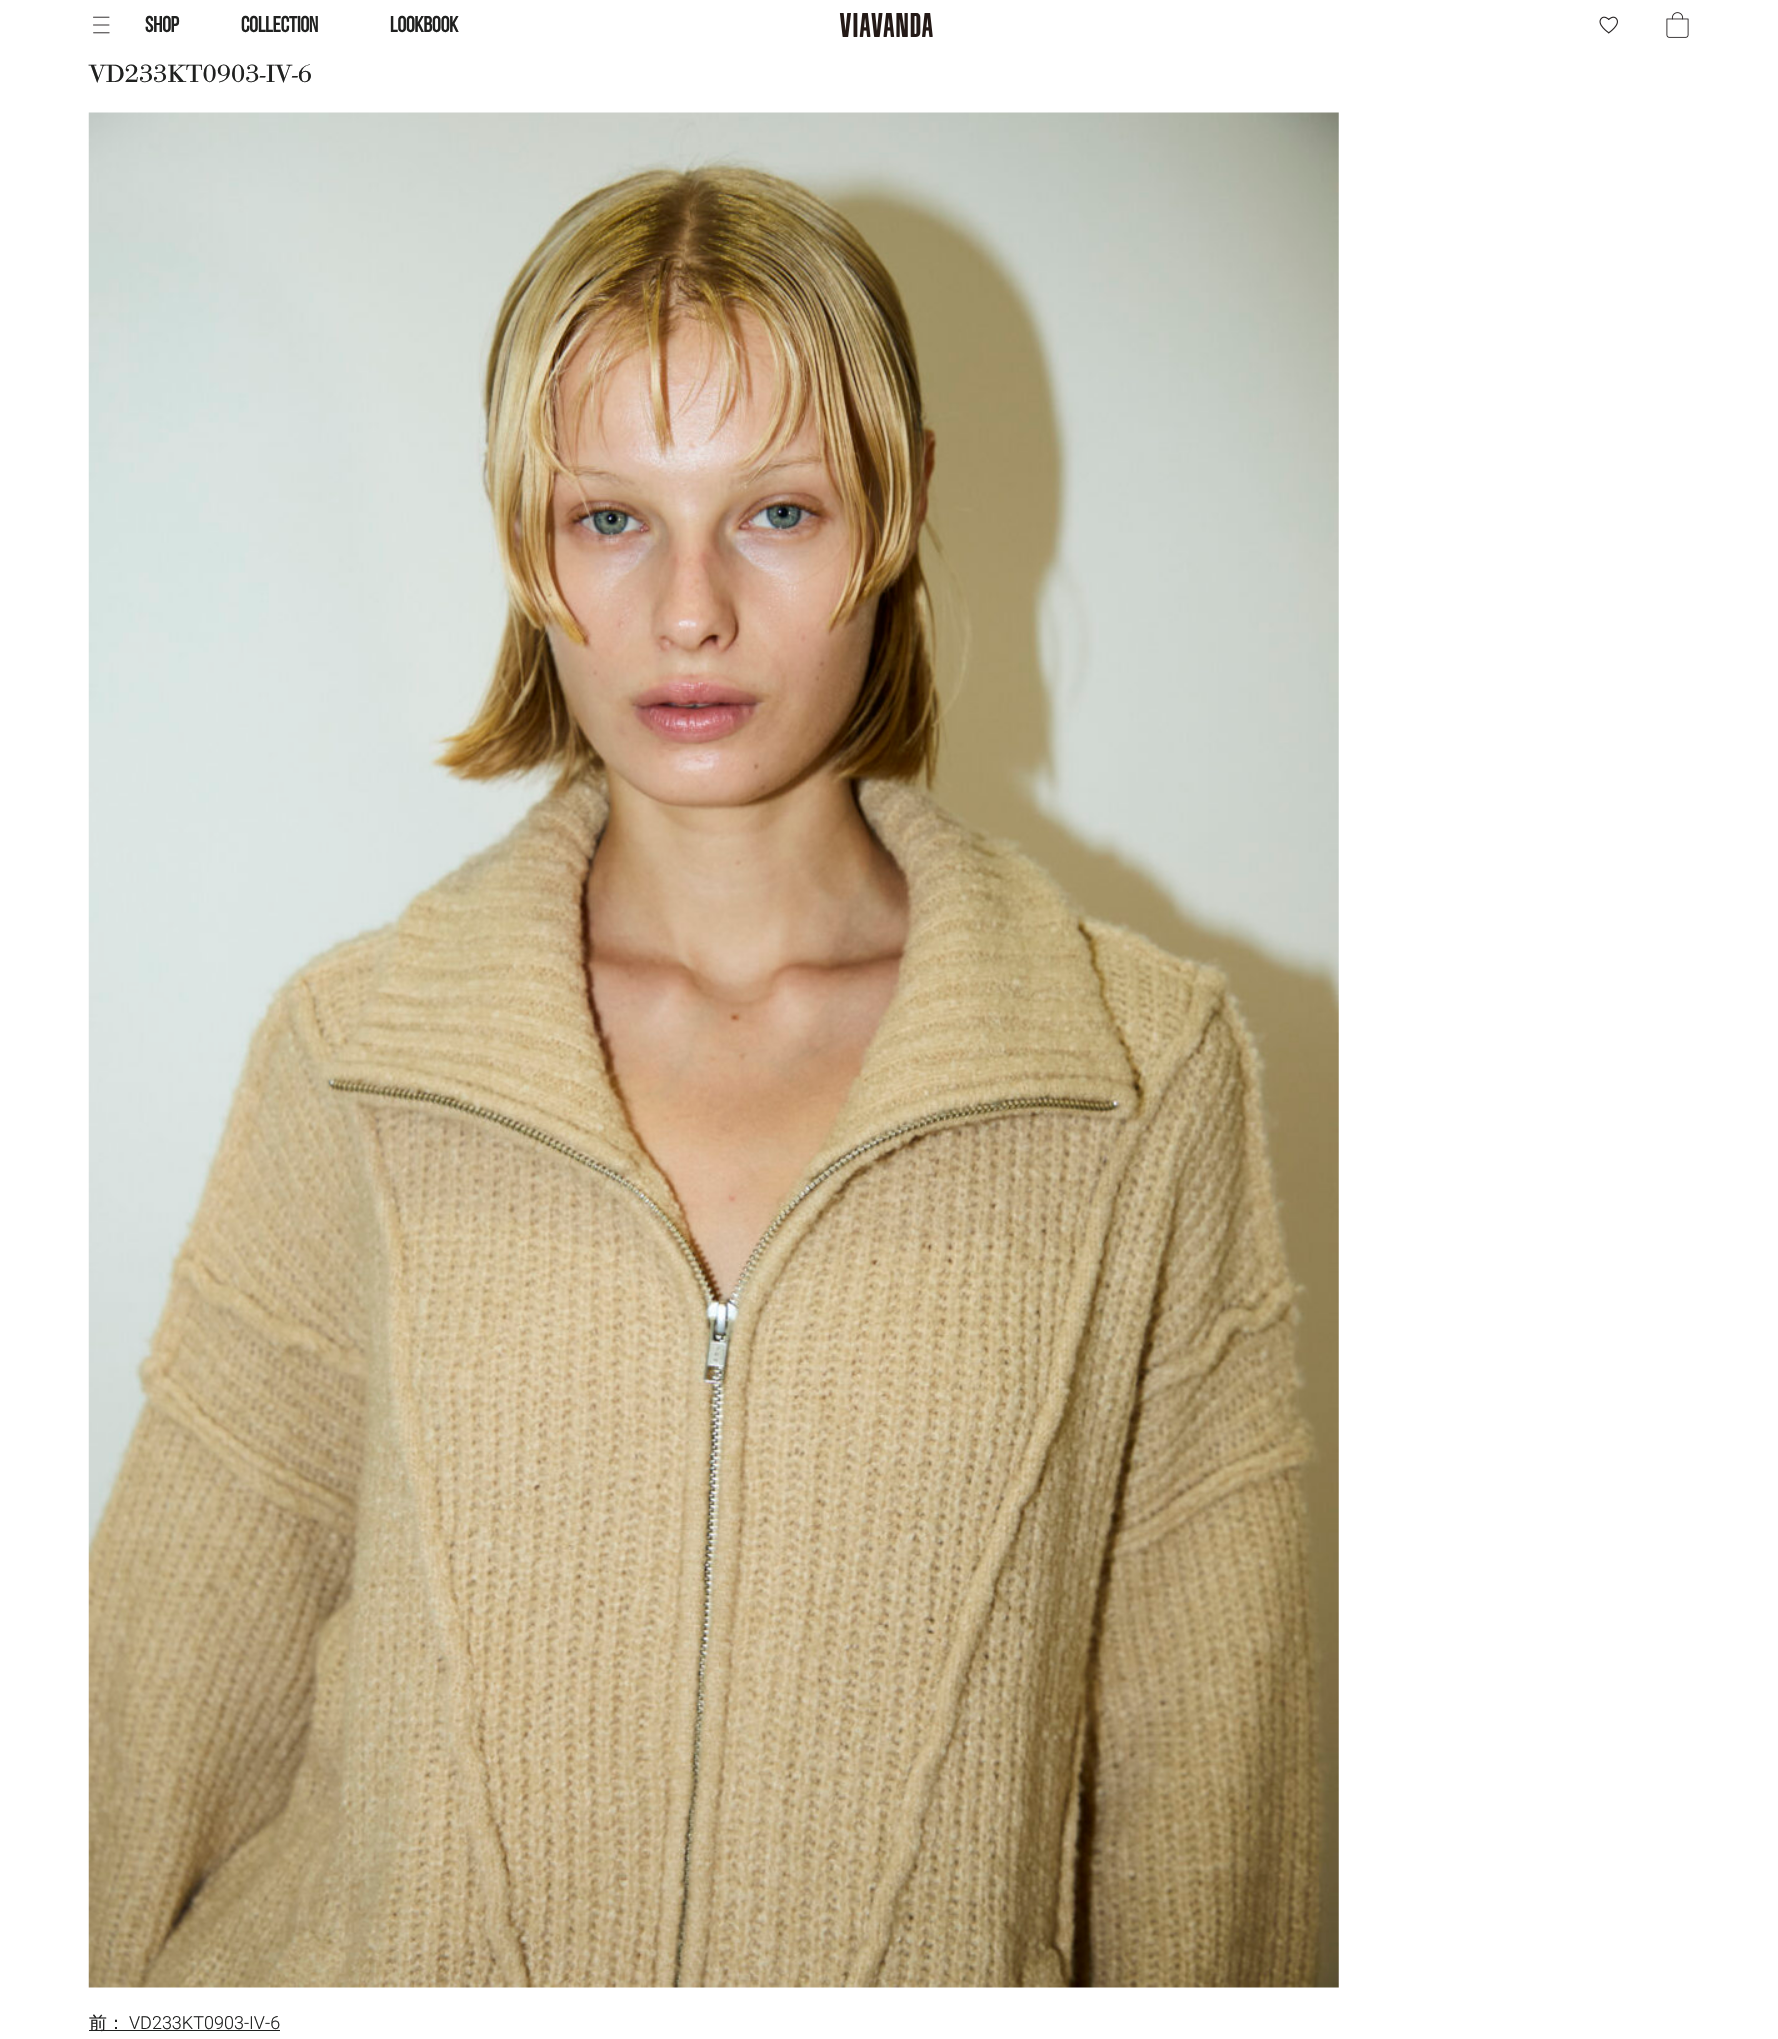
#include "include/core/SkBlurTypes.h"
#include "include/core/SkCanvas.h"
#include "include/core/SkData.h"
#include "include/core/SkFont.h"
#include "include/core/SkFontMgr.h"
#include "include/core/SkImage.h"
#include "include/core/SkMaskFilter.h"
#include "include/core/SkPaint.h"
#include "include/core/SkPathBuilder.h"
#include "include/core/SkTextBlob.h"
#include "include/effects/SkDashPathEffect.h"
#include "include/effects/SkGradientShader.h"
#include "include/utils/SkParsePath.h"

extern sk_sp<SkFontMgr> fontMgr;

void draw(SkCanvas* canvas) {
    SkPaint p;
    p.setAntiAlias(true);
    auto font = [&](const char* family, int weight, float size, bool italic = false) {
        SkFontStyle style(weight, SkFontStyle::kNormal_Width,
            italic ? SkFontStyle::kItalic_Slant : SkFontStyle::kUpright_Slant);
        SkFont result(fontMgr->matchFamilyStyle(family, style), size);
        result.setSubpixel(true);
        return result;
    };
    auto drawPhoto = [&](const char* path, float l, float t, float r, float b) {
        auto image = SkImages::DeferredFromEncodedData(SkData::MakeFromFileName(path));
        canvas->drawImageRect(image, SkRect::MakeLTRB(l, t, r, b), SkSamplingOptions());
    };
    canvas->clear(0xFFFFFFFF);
    drawPhoto("media/1.png", 93, 16, 110, 34);
    auto font1 = font("Bebas Neue", 700, 22);
    p.setColor(0xFF202120);
    {
        const struct { const char* s; float x, y; } items[] = {
            {"SHOP", 145, 32},
            {"COLLECTION", 241, 32},
            {"LOOKBOOK", 390, 32},
        };
        for (auto [s, x, y] : items) {
            canvas->drawString(s, x, y, font1, p);
        }
    }
    drawPhoto("media/2.png", 839, 13, 933, 37);
    drawPhoto("media/3.png", 1599, 16, 1618, 34);
    drawPhoto("media/4.png", 1666, 12, 1689, 38);
    auto font2 = font("Bodoni", 400, 26);
    canvas->drawString("VD233KT0903-IV-6", 89, 82, font2, p);
    drawPhoto("media/5.png", 88, 112, 1339, 1988);
    canvas->drawRect(SkRect::MakeLTRB(89, 2030, 280, 2031), p);
    auto font3 = font("WenQuanYi Zen Hei", 500, 18);
    canvas->drawString("前：", 89, 2029, font3, p);
    auto font4 = font("Roboto", 300, 18);
    canvas->drawString("VD233KT0903-IV-6", 129, 2029, font4, p);
}
